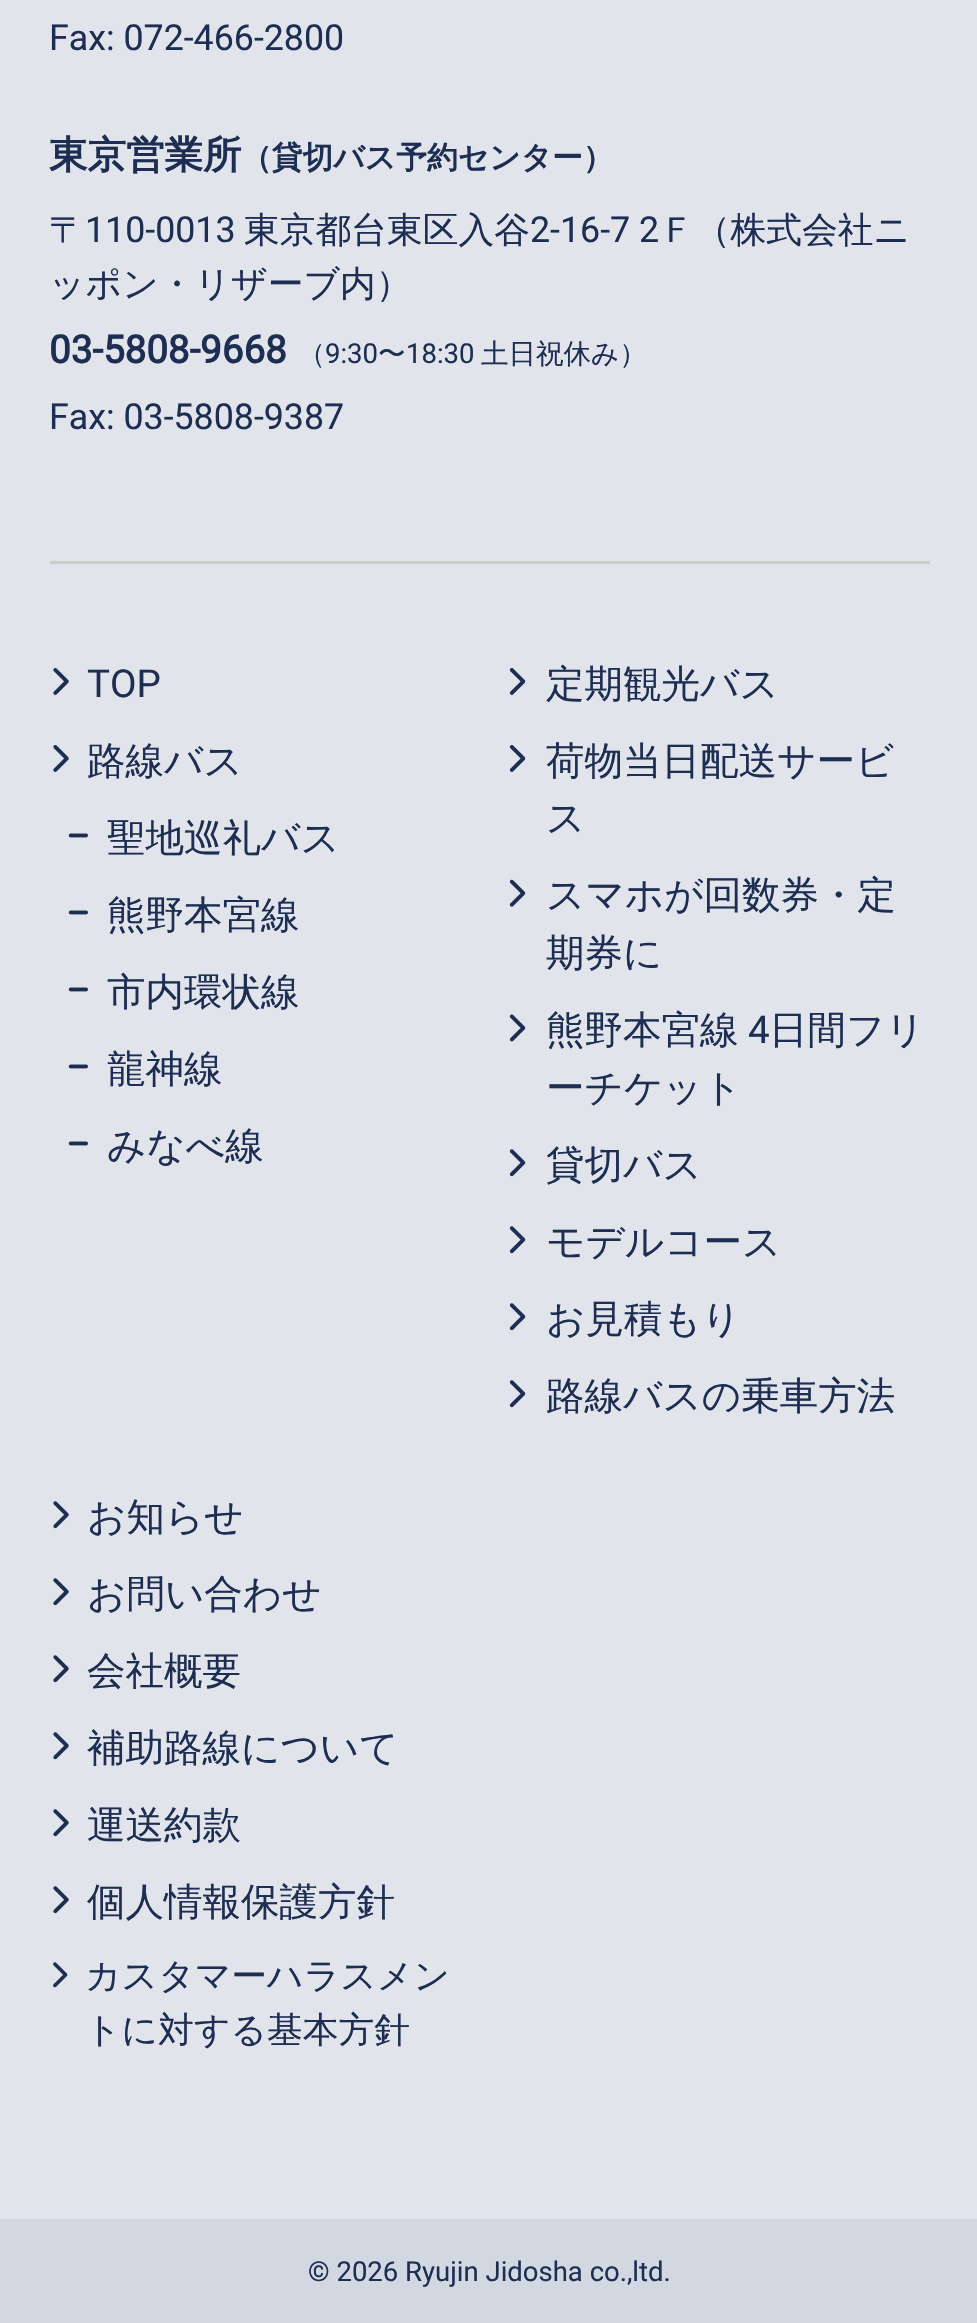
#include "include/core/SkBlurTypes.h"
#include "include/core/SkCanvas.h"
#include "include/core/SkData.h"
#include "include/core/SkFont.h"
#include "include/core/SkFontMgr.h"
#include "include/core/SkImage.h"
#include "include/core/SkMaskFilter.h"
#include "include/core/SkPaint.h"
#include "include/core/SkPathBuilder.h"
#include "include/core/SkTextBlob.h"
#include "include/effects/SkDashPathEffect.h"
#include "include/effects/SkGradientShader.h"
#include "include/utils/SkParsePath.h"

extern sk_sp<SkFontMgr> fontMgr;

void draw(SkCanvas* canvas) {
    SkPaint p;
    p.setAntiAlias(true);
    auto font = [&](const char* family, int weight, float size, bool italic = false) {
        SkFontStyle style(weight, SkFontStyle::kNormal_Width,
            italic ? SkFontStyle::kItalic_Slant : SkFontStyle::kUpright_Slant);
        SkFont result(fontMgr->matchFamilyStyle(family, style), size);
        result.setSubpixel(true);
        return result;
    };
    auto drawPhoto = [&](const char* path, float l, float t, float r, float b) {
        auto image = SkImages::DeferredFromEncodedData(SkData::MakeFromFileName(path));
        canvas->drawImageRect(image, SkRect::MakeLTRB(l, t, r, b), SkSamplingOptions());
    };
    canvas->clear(0xFFE1E5EB);
    auto font1 = font("Roboto", 400, 35.75f);
    p.setColor(0xFF1E2E53);
    canvas->drawString("Fax: 072-466-2800", 49, 50, font1, p);
    auto font2 = font("WenQuanYi Zen Hei", 700, 38.5f);
    canvas->drawString("東京営業所", 49, 168, font2, p);
    auto font3 = font("WenQuanYi Zen Hei", 700, 30.75f);
    canvas->drawString("（貸切バス予約センター）", 241, 168, font3, p);
    auto font4 = font("WenQuanYi Zen Hei", 500, 35.75f);
    canvas->drawString("〒", 49, 242, font4, p);
    canvas->drawString("110-0013", 85, 242, font1, p);
    canvas->drawString("東京都台東区入谷", 244, 242, font4, p);
    canvas->drawString("2-16-7 2", 530, 242, font1, p);
    canvas->drawString("Ｆ（株式会社ニ", 659, 242, font4, p);
    canvas->drawString("ッポン・リザーブ内）", 49, 296, font4, p);
    auto font5 = font("Roboto", 700, 38.5f);
    canvas->drawString("03-5808-9668", 49, 363, font5, p);
    auto font6 = font("WenQuanYi Zen Hei", 500, 27.5f);
    canvas->drawString("（", 298, 363, font6, p);
    auto font7 = font("Roboto", 400, 27.5f);
    canvas->drawString("9:30", 325, 363, font7, p);
    canvas->drawString("〜", 378, 363, font6, p);
    canvas->drawString("18:30", 406, 363, font7, p);
    canvas->drawString("土日祝休み）", 481, 363, font6, p);
    canvas->drawString("Fax: 03-5808-9387", 49, 429, font1, p);
    p.setColor(0xFFCCCCCC);
    canvas->drawRect(SkRect::MakeLTRB(50, 561, 930, 564), p);
    drawPhoto("media/1.png", 53, 668, 69, 695);
    auto font8 = font("Roboto", 400, 38.5f);
    p.setColor(0xFF1E2E53);
    canvas->drawString("TOP", 87, 697, font8, p);
    drawPhoto("media/1.png", 53, 745, 69, 772);
    auto font9 = font("WenQuanYi Zen Hei", 500, 38.5f);
    canvas->drawString("路線バス", 87, 774, font9, p);
    drawPhoto("media/2.png", 68, 833, 88, 838);
    canvas->drawString("聖地巡礼バス", 107, 851, font9, p);
    drawPhoto("media/2.png", 68, 910, 88, 915);
    canvas->drawString("熊野本宮線", 107, 928, font9, p);
    drawPhoto("media/2.png", 68, 987, 88, 992);
    canvas->drawString("市内環状線", 107, 1005, font9, p);
    drawPhoto("media/2.png", 68, 1064, 88, 1069);
    canvas->drawString("龍神線", 107, 1082, font9, p);
    drawPhoto("media/2.png", 68, 1141, 88, 1146);
    canvas->drawString("みなべ線", 107, 1159, font9, p);
    drawPhoto("media/3.png", 509, 668, 526, 695);
    canvas->drawString("定期観光バス", 546, 697, font9, p);
    drawPhoto("media/3.png", 509, 745, 526, 772);
    canvas->drawString("荷物当日配送サービ", 546, 774, font9, p);
    canvas->drawString("ス", 546, 831, font9, p);
    drawPhoto("media/4.png", 509, 879, 526, 907);
    canvas->drawString("スマホが回数券・定", 546, 908, font9, p);
    canvas->drawString("期券に", 546, 966, font9, p);
    drawPhoto("media/5.png", 509, 1014, 526, 1042);
    canvas->drawString("熊野本宮線", 546, 1043, font9, p);
    canvas->drawString("4", 748, 1043, font8, p);
    canvas->drawString("日間フリ", 769, 1043, font9, p);
    canvas->drawString("ーチケット", 546, 1101, font9, p);
    drawPhoto("media/6.png", 509, 1149, 526, 1177);
    canvas->drawString("貸切バス", 546, 1178, font9, p);
    drawPhoto("media/6.png", 509, 1226, 526, 1254);
    canvas->drawString("モデルコース", 546, 1255, font9, p);
    drawPhoto("media/6.png", 509, 1303, 526, 1331);
    canvas->drawString("お見積もり", 546, 1332, font9, p);
    drawPhoto("media/6.png", 509, 1380, 526, 1408);
    canvas->drawString("路線バスの乗車方法", 546, 1409, font9, p);
    drawPhoto("media/7.png", 53, 1501, 69, 1529);
    canvas->drawString("お知らせ", 87, 1530, font9, p);
    drawPhoto("media/7.png", 53, 1578, 69, 1606);
    canvas->drawString("お問い合わせ", 87, 1607, font9, p);
    drawPhoto("media/7.png", 53, 1655, 69, 1683);
    canvas->drawString("会社概要", 87, 1684, font9, p);
    drawPhoto("media/7.png", 53, 1732, 69, 1760);
    canvas->drawString("補助路線について", 87, 1761, font9, p);
    drawPhoto("media/7.png", 53, 1809, 69, 1837);
    canvas->drawString("運送約款", 87, 1838, font9, p);
    drawPhoto("media/7.png", 53, 1886, 69, 1914);
    canvas->drawString("個人情報保護方針", 87, 1915, font9, p);
    drawPhoto("media/8.png", 53, 1962, 68, 1988);
    canvas->drawString("カスタマーハラスメン", 85, 1988, font4, p);
    canvas->drawString("トに対する基本方針", 85, 2042, font4, p);
    p.setColor(0xFFD2D8E1);
    canvas->drawRect(SkRect::MakeLTRB(0, 2219, 977, 2323), p);
    p.setColor(0xFF1E2E53);
    canvas->drawString("© 2026 Ryujin Jidosha co.,ltd.", 308, 2281, font7, p);
}
